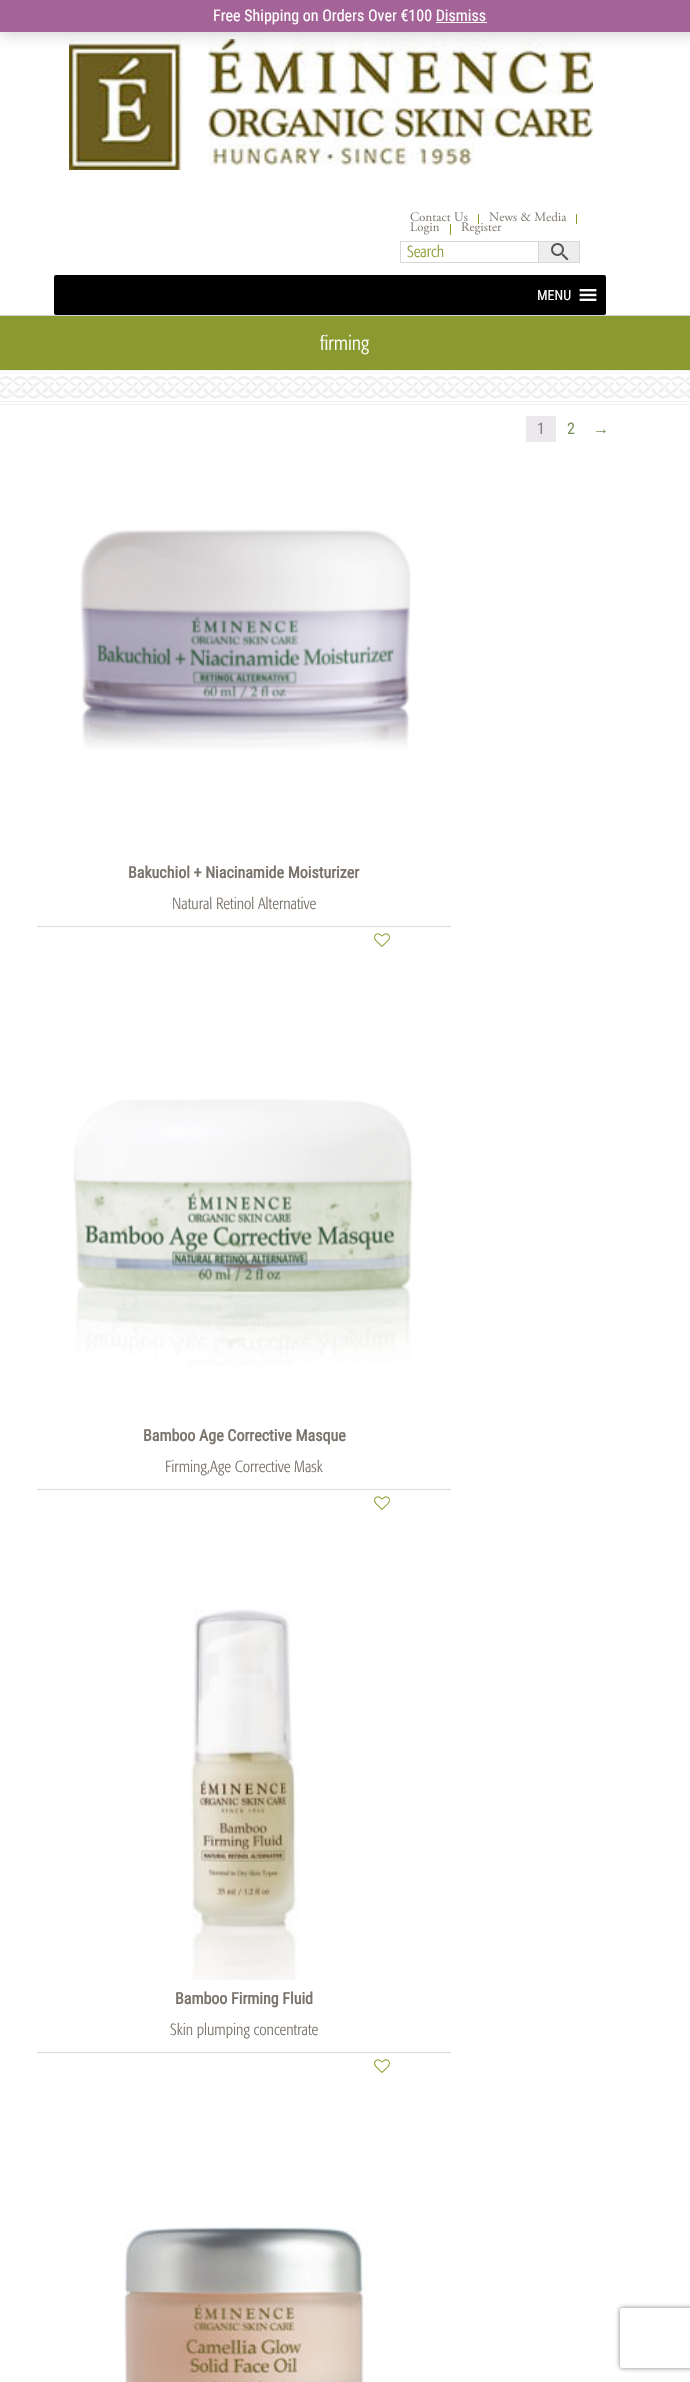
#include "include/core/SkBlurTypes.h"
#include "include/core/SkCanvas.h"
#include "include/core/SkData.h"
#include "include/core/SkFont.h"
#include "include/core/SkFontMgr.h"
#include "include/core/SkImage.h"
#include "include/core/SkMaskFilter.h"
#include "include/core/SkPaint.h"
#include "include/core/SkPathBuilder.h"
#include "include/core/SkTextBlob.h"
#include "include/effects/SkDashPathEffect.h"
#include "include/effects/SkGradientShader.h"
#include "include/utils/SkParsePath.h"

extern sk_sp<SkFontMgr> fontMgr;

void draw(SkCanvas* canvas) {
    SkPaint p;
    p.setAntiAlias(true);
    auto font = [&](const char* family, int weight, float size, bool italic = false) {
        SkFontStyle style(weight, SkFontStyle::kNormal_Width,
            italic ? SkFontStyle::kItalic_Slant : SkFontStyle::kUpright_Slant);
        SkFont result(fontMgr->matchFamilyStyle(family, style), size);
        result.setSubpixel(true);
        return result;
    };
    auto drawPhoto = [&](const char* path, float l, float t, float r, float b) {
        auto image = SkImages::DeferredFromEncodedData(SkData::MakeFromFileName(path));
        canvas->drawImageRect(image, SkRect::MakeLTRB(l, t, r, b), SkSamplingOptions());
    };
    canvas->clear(0xFFFFFFFF);
    drawPhoto("media/1.png", 69, 39, 593, 170);
    p.setColor(0x33000000);
    p.setMaskFilter(SkMaskFilter::MakeBlur(kNormal_SkBlurStyle, 8));
    canvas->drawRect(SkRect::MakeLTRB(0, 1, 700, 33), p);
    p.setMaskFilter(nullptr);
    p.setColor(0xFFA46497);
    canvas->drawRect(SkRect::MakeLTRB(0, 0, 690, 32), p);
    auto font1 = font("Roboto Condensed", 400, 16);
    p.setColor(0xFFFFFFFF);
    canvas->drawString("Free Shipping on Orders Over €100 Dismiss", 213, 21, font1, p);
    canvas->drawRect(SkRect::MakeLTRB(436, 22, 487, 23), p);
    p.setColor(0xFF8B9931);
    canvas->drawRect(SkRect::MakeLTRB(478, 214, 479, 224), p);
    drawPhoto("media/2.png", 410, 212, 468, 222);
    canvas->drawRect(SkRect::MakeLTRB(576, 214, 577, 224), p);
    drawPhoto("media/3.png", 489, 211, 567, 222);
    canvas->drawRect(SkRect::MakeLTRB(450, 224, 451, 235), p);
    drawPhoto("media/4.png", 410, 222, 440, 235);
    drawPhoto("media/5.png", 461, 222, 502, 235);
    p.setColor(0xFFEDEDED);
    canvas->drawRect(SkRect::MakeLTRB(538.5f, 241.5f, 579.5f, 262.5f), p);
    p.setStyle(SkPaint::kStroke_Style);
    p.setStrokeWidth(1);
    p.setColor(0xFFD8D8D8);
    canvas->drawRect(SkRect::MakeLTRB(538.5f, 241.5f, 579.5f, 262.5f), p);
    canvas->drawRect(SkRect::MakeLTRB(400.5f, 241.5f, 538.5f, 262.5f), p);
    auto font2 = font("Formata", 300, 16);
    p.setStyle(SkPaint::kFill_Style);
    p.setColor(0xFF8B9931);
    canvas->drawString("Search", 407, 257, font2, p);
    drawPhoto("media/6.png", 551, 243, 569, 261);
    p.setColor(0xFF000000);
    canvas->drawRoundRect(SkRect::MakeLTRB(54, 275, 606, 315), 2, 2, p);
    auto font3 = font("Roboto Condensed", 400, 14);
    p.setColor(0xFFFFFFFF);
    canvas->drawString("MENU", 537, 300, font3, p);
    drawPhoto("media/7.png", 579, 289, 597, 301);
    p.setColor(0xFFD2D3D4);
    canvas->drawRect(SkRect::MakeLTRB(0, 315, 690, 316), p);
    p.setColor(0xFF8B9931);
    canvas->drawRect(SkRect::MakeLTRB(0, 316, 690, 370), p);
    auto font4 = font("Formata", 300, 20);
    p.setColor(0xFFFFFFFF);
    canvas->drawString("firming", 320, 350, font4, p);
    drawPhoto("media/8.png", 0, 370, 690, 405);
    p.setColor(0xFFEBE9EB);
    canvas->drawRect(SkRect::MakeLTRB(526, 416, 556, 442), p);
    p.setColor(0xFF8A7E88);
    canvas->drawString("1", 537, 434, font1, p);
    p.setColor(0xFF7B9260);
    canvas->drawString("2", 567, 434, font1, p);
    auto font5 = font("Liberation Sans", 400, 16);
    canvas->drawString("→", 593, 434, font5, p);
    drawPhoto("media/9.png", 80, 529, 411, 749);
    auto font6 = font("Roboto Condensed", 700, 16);
    p.setColor(0xFF7A746C);
    canvas->drawString("Bakuchiol + Niacinamide Moisturizer", 128, 878, font6, p);
    canvas->drawString("Natural Retinol Alternative", 172, 909, font2, p);
    p.setColor(0xFFDCDCDC);
    canvas->drawRect(SkRect::MakeLTRB(37, 926, 451, 927), p);
    drawPhoto("media/10.png", 374, 933, 390, 947);
    drawPhoto("media/11.png", 73, 1099, 413, 1366);
    p.setColor(0xFF7A746C);
    canvas->drawString("Bamboo Age Corrective Masque", 143, 1441, font6, p);
    canvas->drawString("Firming,Age Corrective Mask", 165, 1472, font2, p);
    p.setColor(0xFFDCDCDC);
    canvas->drawRect(SkRect::MakeLTRB(37, 1489, 451, 1490), p);
    drawPhoto("media/10.png", 374, 1496, 390, 1510);
    drawPhoto("media/12.png", 191, 1609, 299, 1980);
    p.setColor(0xFF7A746C);
    canvas->drawString("Bamboo Firming Fluid", 175, 2004, font6, p);
    canvas->drawString("Skin plumping concentrate", 170, 2035, font2, p);
    p.setColor(0xFFDCDCDC);
    canvas->drawRect(SkRect::MakeLTRB(37, 2052, 451, 2053), p);
    drawPhoto("media/10.png", 374, 2059, 390, 2073);
    drawPhoto("media/13.png", 124, 2227, 368, 2382);
    canvas->save();
    canvas->clipPath(SkPathBuilder(SkPathFillType::kEvenOdd).moveTo(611, 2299).lineTo(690, 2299).lineTo(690, 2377).lineTo(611, 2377).close().moveTo(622, 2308).lineTo(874, 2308).cubicTo(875, 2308, 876, 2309, 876, 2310).lineTo(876, 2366).cubicTo(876, 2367, 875, 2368, 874, 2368).lineTo(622, 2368).cubicTo(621, 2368, 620, 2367, 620, 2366).lineTo(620, 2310).cubicTo(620, 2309, 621, 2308, 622, 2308).close().detach(), true);
    p.setColor(0xFF808080);
    p.setMaskFilter(SkMaskFilter::MakeBlur(kNormal_SkBlurStyle, 2.5f));
    canvas->drawRoundRect(SkRect::MakeLTRB(620, 2308, 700, 2368), 2, 2, p);
    p.setMaskFilter(nullptr);
    canvas->restore();
}
